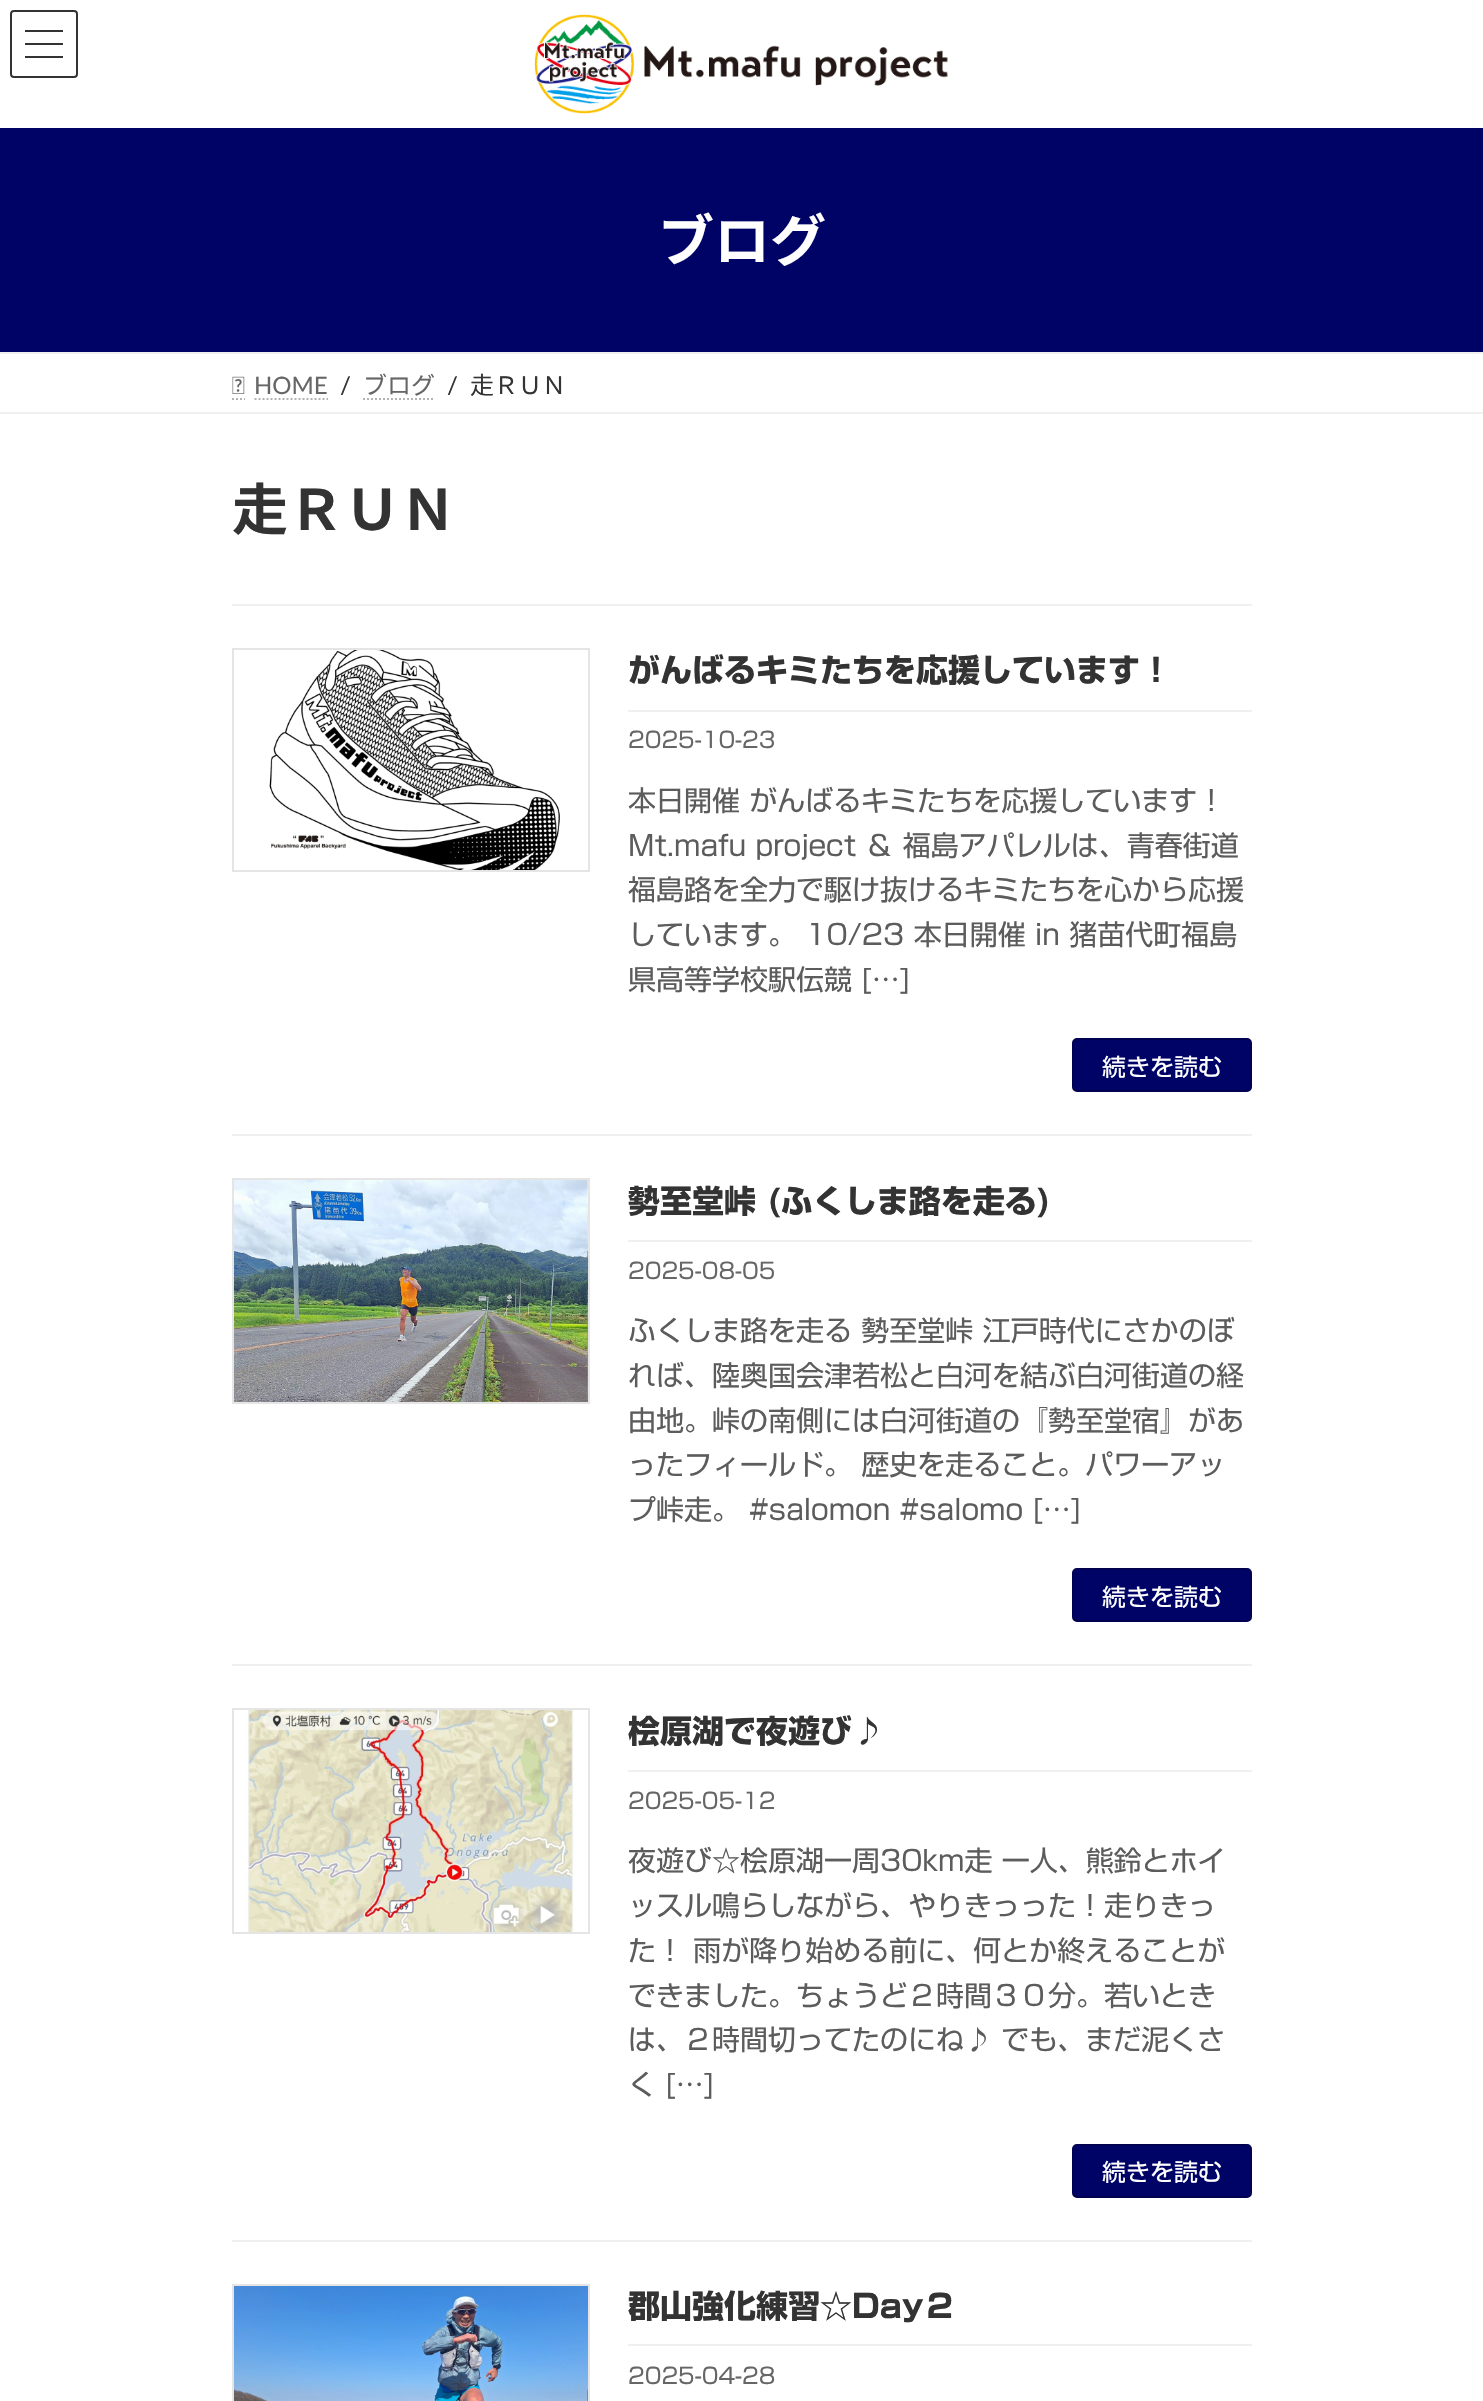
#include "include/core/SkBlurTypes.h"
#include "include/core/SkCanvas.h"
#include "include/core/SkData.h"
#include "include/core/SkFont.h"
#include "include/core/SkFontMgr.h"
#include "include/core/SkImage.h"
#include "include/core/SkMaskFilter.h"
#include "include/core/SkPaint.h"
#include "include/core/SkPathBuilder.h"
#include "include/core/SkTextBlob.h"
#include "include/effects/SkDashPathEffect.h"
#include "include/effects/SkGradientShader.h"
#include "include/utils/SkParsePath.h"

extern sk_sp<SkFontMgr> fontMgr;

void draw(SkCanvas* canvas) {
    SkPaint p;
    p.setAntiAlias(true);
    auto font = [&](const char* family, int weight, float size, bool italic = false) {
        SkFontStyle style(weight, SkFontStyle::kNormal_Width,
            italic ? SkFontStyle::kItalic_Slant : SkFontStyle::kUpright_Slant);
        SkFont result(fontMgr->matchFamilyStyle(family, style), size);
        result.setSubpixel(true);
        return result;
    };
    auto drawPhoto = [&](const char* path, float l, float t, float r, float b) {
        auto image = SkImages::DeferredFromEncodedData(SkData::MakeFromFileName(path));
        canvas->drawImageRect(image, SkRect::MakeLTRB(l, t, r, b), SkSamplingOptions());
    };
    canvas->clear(0xFFFFFFFF);
    {
        const struct { float l, t, r, b; SkColor color; } items[] = {
            {25, 30, 63, 32, 0xFF333333},
            {25, 43, 63, 45, 0xFF333333},
            {25, 56, 63, 58, 0xFF333333},
        };
        for (auto [l, t, r, b, color] : items) {
            p.setColor(color);
            canvas->drawRect(SkRect::MakeLTRB(l, t, r, b), p);
        }
    }
    p.setStyle(SkPaint::kStroke_Style);
    p.setStrokeWidth(2);
    canvas->drawRoundRect(SkRect::MakeLTRB(11, 11, 77, 77), 3, 3, p);
    drawPhoto("media/1.png", 534, 14, 948, 114);
    p.setStyle(SkPaint::kFill_Style);
    p.setColor(0xFF000366);
    canvas->drawRect(SkRect::MakeLTRB(0, 128, 1483, 352), p);
    auto font1 = font("Noto Sans JP", 700, 56);
    p.setColor(0xFFFFFFFF);
    canvas->drawString("ブログ", 658, 261, font1, p);
    p.setColor(0xFFF0F0F0);
    canvas->drawRect(SkRect::MakeLTRB(0, 352, 1483, 354), p);
    canvas->drawRect(SkRect::MakeLTRB(0, 412, 1483, 414), p);
    drawPhoto("media/2.png", 232, 376, 245, 394);
    auto font2 = font("Lato", 400, 24);
    p.setColor(0xFF666666);
    canvas->drawString("HOME", 254, 394, font2, p);
    p.setStyle(SkPaint::kStroke_Style);
    p.setColor(0xFFB3B3B3);
    canvas->drawPath(SkPathBuilder().moveTo(232, 399).lineTo(234, 399).moveTo(236, 399).lineTo(238, 399).moveTo(240, 399).lineTo(242, 399).moveTo(244, 399).lineTo(245, 399).detach(), p);
    p.setPathEffect(SkDashPathEffect::Make({{2, 2}}, 0));
    canvas->drawPath(SkPathBuilder().moveTo(254.5f, 399).lineTo(328, 399).detach(), p);
    p.setPathEffect(nullptr);
    p.setStyle(SkPaint::kFill_Style);
    p.setColor(0xFF333333);
    canvas->drawString("/", 340, 394, font2, p);
    auto font3 = font("Noto Sans JP", 400, 24);
    p.setColor(0xFF666666);
    canvas->drawString("ブログ", 363, 394, font3, p);
    p.setStyle(SkPaint::kStroke_Style);
    p.setColor(0xFFB3B3B3);
    p.setPathEffect(SkDashPathEffect::Make({{2, 2}}, 0));
    canvas->drawPath(SkPathBuilder().moveTo(363, 399).lineTo(435, 399).detach(), p);
    p.setPathEffect(nullptr);
    p.setStyle(SkPaint::kFill_Style);
    p.setColor(0xFF333333);
    canvas->drawString("/", 447, 394, font2, p);
    canvas->drawString("走ＲＵＮ", 470, 394, font3, p);
    canvas->drawString("走ＲＵＮ", 232, 530, font1, p);
    p.setColor(0xFFF0F0F0);
    canvas->drawRect(SkRect::MakeLTRB(232, 604, 1252, 606), p);
    canvas->drawRect(SkRect::MakeLTRB(232, 1134, 1252, 1136), p);
    drawPhoto("media/3.png", 269, 650, 560, 870);
    p.setStyle(SkPaint::kStroke_Style);
    p.setColor(0xFFE5E5E5);
    canvas->drawRect(SkRect::MakeLTRB(233, 649, 589, 871), p);
    p.setStyle(SkPaint::kFill_Style);
    p.setColor(0xFFF0F0F0);
    canvas->drawRect(SkRect::MakeLTRB(628, 710, 1252, 712), p);
    auto font4 = font("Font", 700, 32);
    p.setColor(0xFF333333);
    canvas->drawString("がんばるキミたちを応援しています！", 628, 682, font4, p);
    auto font5 = font("Font", 400, 22);
    p.setColor(0xFF666666);
    canvas->drawString("2025-10-23", 628, 748, font5, p);
    auto font6 = font("Font", 400, 28);
    p.setColor(0xFF5C5C5C);
    {
        const struct { const char* s; float x, y; } items[] = {
            {"本日開催 がんばるキミたちを応援しています！", 628, 811},
            {"Mt.mafu project ＆ 福島アパレルは、青春街道", 628, 856},
            {"福島路を全力で駆け抜けるキミたちを心から応援", 628, 900},
            {"しています。 10/23 本日開催 in 猪苗代町福島", 628, 945},
            {"県高等学校駅伝競 […]", 628, 990},
        };
        for (auto [s, x, y] : items) {
            canvas->drawString(s, x, y, font6, p);
        }
    }
    p.setColor(0xFF000366);
    canvas->drawRoundRect(SkRect::MakeLTRB(1073, 1039, 1251, 1091), 4, 4, p);
    p.setStyle(SkPaint::kStroke_Style);
    p.setColor(0xFF000251);
    canvas->drawRoundRect(SkRect::MakeLTRB(1073, 1039, 1251, 1091), 4, 4, p);
    auto font7 = font("Font", 400, 24);
    p.setStyle(SkPaint::kFill_Style);
    p.setColor(0xFFFFFFFF);
    canvas->drawString("続きを読む", 1102, 1076, font7, p);
    p.setColor(0xFFF0F0F0);
    canvas->drawRect(SkRect::MakeLTRB(232, 1664, 1252, 1666), p);
    drawPhoto("media/4.png", 234, 1180, 588, 1402);
    p.setStyle(SkPaint::kStroke_Style);
    p.setColor(0xFFE5E5E5);
    canvas->drawRect(SkRect::MakeLTRB(233, 1179, 589, 1403), p);
    p.setStyle(SkPaint::kFill_Style);
    p.setColor(0xFFF0F0F0);
    canvas->drawRect(SkRect::MakeLTRB(628, 1240, 1252, 1242), p);
    p.setColor(0xFF333333);
    canvas->drawString("勢至堂峠 (ふくしま路を走る)", 628, 1213, font4, p);
    p.setColor(0xFF666666);
    canvas->drawString("2025-08-05", 628, 1279, font5, p);
    p.setColor(0xFF5C5C5C);
    {
        const struct { const char* s; float x, y; } items[] = {
            {"ふくしま路を走る 勢至堂峠 江戸時代にさかのぼ", 628, 1341},
            {"れば、陸奥国会津若松と白河を結ぶ白河街道の経", 628, 1386},
            {"由地。峠の南側には白河街道の『勢至堂宿』があ", 628, 1431},
            {"ったフィールド。 歴史を走ること。パワーアッ", 628, 1475},
            {"プ峠走。 #salomon #salomo […]", 628, 1520},
        };
        for (auto [s, x, y] : items) {
            canvas->drawString(s, x, y, font6, p);
        }
    }
    p.setColor(0xFF000366);
    canvas->drawRoundRect(SkRect::MakeLTRB(1073, 1569, 1251, 1621), 4, 4, p);
    p.setStyle(SkPaint::kStroke_Style);
    p.setColor(0xFF000251);
    canvas->drawRoundRect(SkRect::MakeLTRB(1073, 1569, 1251, 1621), 4, 4, p);
    p.setStyle(SkPaint::kFill_Style);
    p.setColor(0xFFFFFFFF);
    canvas->drawString("続きを読む", 1102, 1606, font7, p);
    p.setColor(0xFFF0F0F0);
    canvas->drawRect(SkRect::MakeLTRB(232, 2240, 1252, 2242), p);
    drawPhoto("media/5.png", 246, 1710, 575, 1932);
    p.setStyle(SkPaint::kStroke_Style);
    p.setColor(0xFFE5E5E5);
    canvas->drawRect(SkRect::MakeLTRB(233, 1709, 589, 1933), p);
    p.setStyle(SkPaint::kFill_Style);
    p.setColor(0xFFF0F0F0);
    canvas->drawRect(SkRect::MakeLTRB(628, 1770, 1252, 1772), p);
    p.setColor(0xFF333333);
    canvas->drawString("桧原湖で夜遊び♪", 628, 1743, font4, p);
    p.setColor(0xFF666666);
    canvas->drawString("2025-05-12", 628, 1809, font5, p);
    p.setColor(0xFF5C5C5C);
    {
        const struct { const char* s; float x, y; } items[] = {
            {"夜遊び☆桧原湖一周30km走 一人、熊鈴とホイ", 628, 1871},
            {"ッスル鳴らしながら、やりきっった！走りきっ", 628, 1916},
            {"た！ 雨が降り始める前に、何とか終えることが", 628, 1961},
            {"できました。ちょうど２時間３０分。若いとき", 628, 2006},
            {"は、２時間切ってたのにね♪ でも、まだ泥くさ", 628, 2050},
            {"く […]", 628, 2095},
        };
        for (auto [s, x, y] : items) {
            canvas->drawString(s, x, y, font6, p);
        }
    }
    p.setColor(0xFF000366);
    canvas->drawRoundRect(SkRect::MakeLTRB(1073, 2145, 1251, 2197), 4, 4, p);
    p.setStyle(SkPaint::kStroke_Style);
    p.setColor(0xFF000251);
    canvas->drawRoundRect(SkRect::MakeLTRB(1073, 2145, 1251, 2197), 4, 4, p);
    p.setStyle(SkPaint::kFill_Style);
    p.setColor(0xFFFFFFFF);
    canvas->drawString("続きを読む", 1102, 2181, font7, p);
    drawPhoto("media/6.png", 234, 2286, 588, 2401);
    p.setStyle(SkPaint::kStroke_Style);
    p.setColor(0xFFE5E5E5);
    canvas->drawRect(SkRect::MakeLTRB(233, 2285, 589, 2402), p);
    p.setStyle(SkPaint::kFill_Style);
    p.setColor(0xFFF0F0F0);
    canvas->drawRect(SkRect::MakeLTRB(628, 2344, 1252, 2346), p);
    p.setColor(0xFF333333);
    canvas->drawString("郡山強化練習☆Day２", 628, 2318, font4, p);
    p.setColor(0xFF666666);
    canvas->drawString("2025-04-28", 628, 2384, font5, p);
}
